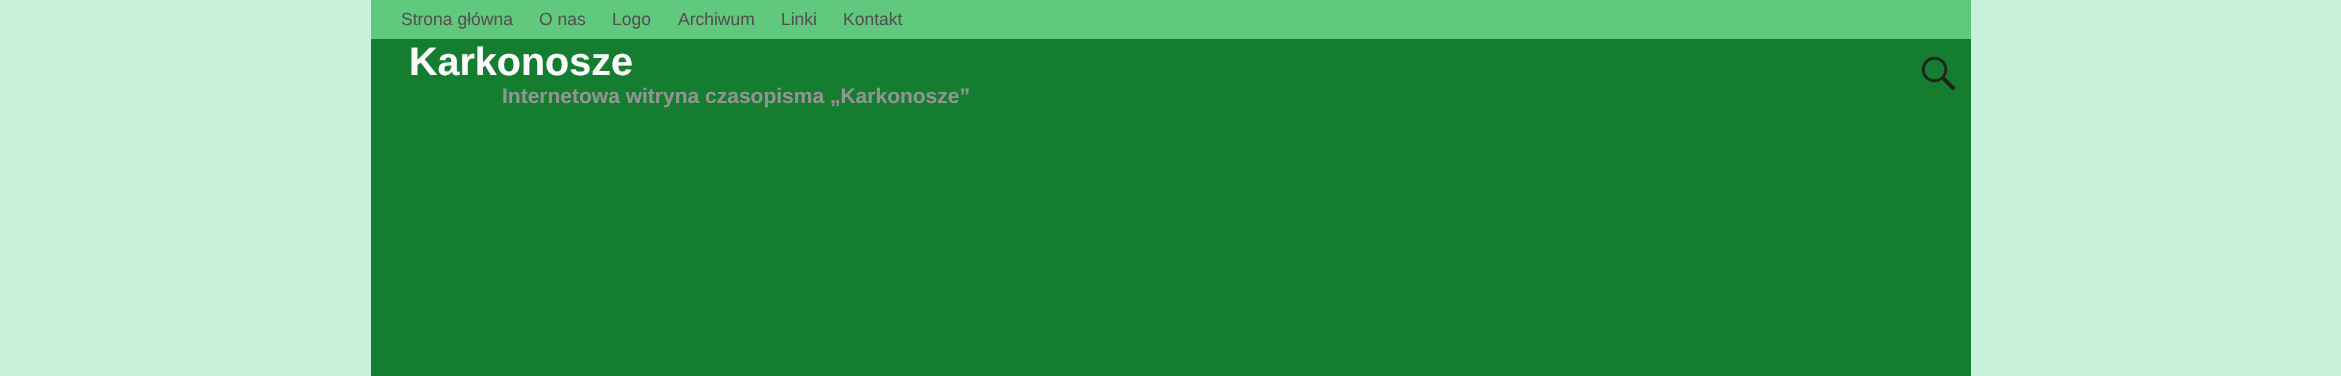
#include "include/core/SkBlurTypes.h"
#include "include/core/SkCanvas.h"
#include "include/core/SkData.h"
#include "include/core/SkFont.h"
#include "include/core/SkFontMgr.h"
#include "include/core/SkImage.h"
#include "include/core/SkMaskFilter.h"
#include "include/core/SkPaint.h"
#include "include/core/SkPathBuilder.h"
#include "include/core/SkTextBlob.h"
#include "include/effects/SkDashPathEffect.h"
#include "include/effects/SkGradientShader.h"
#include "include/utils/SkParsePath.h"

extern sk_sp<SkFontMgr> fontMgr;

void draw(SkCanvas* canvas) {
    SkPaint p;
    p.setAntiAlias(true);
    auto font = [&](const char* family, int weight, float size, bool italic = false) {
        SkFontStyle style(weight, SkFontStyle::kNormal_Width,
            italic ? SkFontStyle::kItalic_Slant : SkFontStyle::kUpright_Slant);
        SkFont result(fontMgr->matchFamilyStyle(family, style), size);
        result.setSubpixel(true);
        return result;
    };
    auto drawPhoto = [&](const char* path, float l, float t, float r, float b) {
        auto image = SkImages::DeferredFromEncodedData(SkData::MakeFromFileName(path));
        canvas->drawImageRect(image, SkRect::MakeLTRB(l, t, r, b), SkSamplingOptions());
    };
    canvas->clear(0xFFC9F0DB);
    p.setColor(0xFF147D30);
    canvas->drawRect(SkRect::MakeLTRB(371, 39, 1971, 376), p);
    p.setColor(0xFF61C97D);
    canvas->drawRect(SkRect::MakeLTRB(371, 0, 1971, 39), p);
    auto font1 = font("Liberation Sans", 400, 17.5f);
    p.setColor(0xFF525252);
    {
        const struct { const char* s; float x, y; } items[] = {
            {"Strona główna", 401, 25},
            {"O nas", 539, 25},
            {"Logo", 612, 25},
            {"Archiwum", 678, 25},
            {"Linki", 781, 25},
            {"Kontakt", 843, 25},
        };
        for (auto [s, x, y] : items) {
            canvas->drawString(s, x, y, font1, p);
        }
    }
    auto font2 = font("Liberation Sans", 700, 39.5f);
    p.setColor(0xFFFAFAFA);
    canvas->drawString("Karkonosze", 409, 75, font2, p);
    drawPhoto("media/1.png", 1921, 56, 1956, 91);
    auto font3 = font("Liberation Sans", 700, 21);
    p.setColor(0xFF949494);
    canvas->drawString("Internetowa witryna czasopisma „Karkonosze”", 502, 103, font3, p);
}
